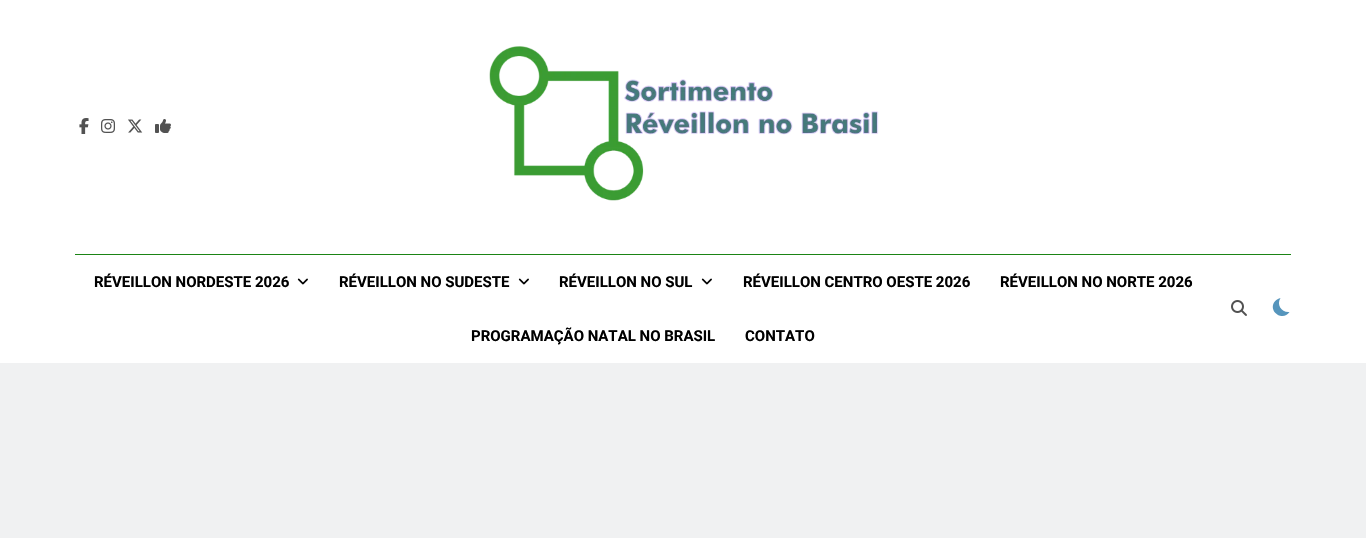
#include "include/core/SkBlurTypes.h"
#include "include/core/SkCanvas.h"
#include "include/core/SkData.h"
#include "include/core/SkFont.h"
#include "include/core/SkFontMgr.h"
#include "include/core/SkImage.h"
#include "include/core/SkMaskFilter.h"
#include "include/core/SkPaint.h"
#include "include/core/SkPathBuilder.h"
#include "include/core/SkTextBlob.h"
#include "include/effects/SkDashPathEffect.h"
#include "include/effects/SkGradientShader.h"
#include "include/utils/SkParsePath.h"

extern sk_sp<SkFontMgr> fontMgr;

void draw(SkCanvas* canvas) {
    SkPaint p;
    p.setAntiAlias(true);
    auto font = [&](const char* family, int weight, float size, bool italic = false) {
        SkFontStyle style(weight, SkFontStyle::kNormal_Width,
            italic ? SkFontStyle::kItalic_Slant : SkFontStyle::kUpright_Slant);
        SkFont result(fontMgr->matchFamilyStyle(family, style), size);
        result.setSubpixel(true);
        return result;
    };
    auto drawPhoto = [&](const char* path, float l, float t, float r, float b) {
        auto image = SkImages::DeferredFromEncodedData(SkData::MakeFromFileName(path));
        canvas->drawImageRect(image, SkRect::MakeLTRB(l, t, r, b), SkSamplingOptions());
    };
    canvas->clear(0xFFF0F1F2);
    p.setColor(0xFFFFFFFF);
    canvas->drawRect(SkRect::MakeLTRB(0, 0, 1366, 363), p);
    drawPhoto("media/1.png", 79, 118, 89, 134);
    drawPhoto("media/2.png", 101, 119, 115, 133);
    drawPhoto("media/3.png", 128, 119, 143, 133);
    drawPhoto("media/4.png", 155, 119, 171, 133);
    drawPhoto("media/5.png", 489, 46, 879, 201);
    p.setColor(0xFF1B8415);
    canvas->drawRect(SkRect::MakeLTRB(75, 254, 1291, 255), p);
    auto font1 = font("Roboto", 700, 15);
    p.setColor(0xFF000000);
    canvas->drawString("RÉVEILLON NORDESTE 2026", 94, 287, font1, p);
    drawPhoto("media/6.png", 297, 278, 308, 285);
    canvas->drawString("RÉVEILLON NO SUDESTE", 339, 287, font1, p);
    drawPhoto("media/6.png", 518, 278, 529, 285);
    canvas->drawString("RÉVEILLON NO SUL", 559, 287, font1, p);
    drawPhoto("media/6.png", 701, 278, 712, 285);
    {
        const struct { const char* s; float x, y; } items[] = {
            {"RÉVEILLON CENTRO OESTE 2026", 743, 287},
            {"RÉVEILLON NO NORTE 2026", 1000, 287},
            {"PROGRAMAÇÃO NATAL NO BRASIL", 471, 341},
            {"CONTATO", 745, 341},
        };
        for (auto [s, x, y] : items) {
            canvas->drawString(s, x, y, font1, p);
        }
    }
    drawPhoto("media/7.png", 1231, 300, 1247, 316);
    p.setColor(0xFF5695BC);
    canvas->drawPath(SkPathBuilder().moveTo(1289.5f, 312).cubicTo(1282, 313, 1276, 305, 1280.5f, 298).cubicTo(1277.5f, 298.5f, 1275.5f, 300.5f, 1274, 302.5f).cubicTo(1268.5f, 312.5f, 1283.5f, 321.5f, 1289.5f, 312).close().detach(), p);
}
